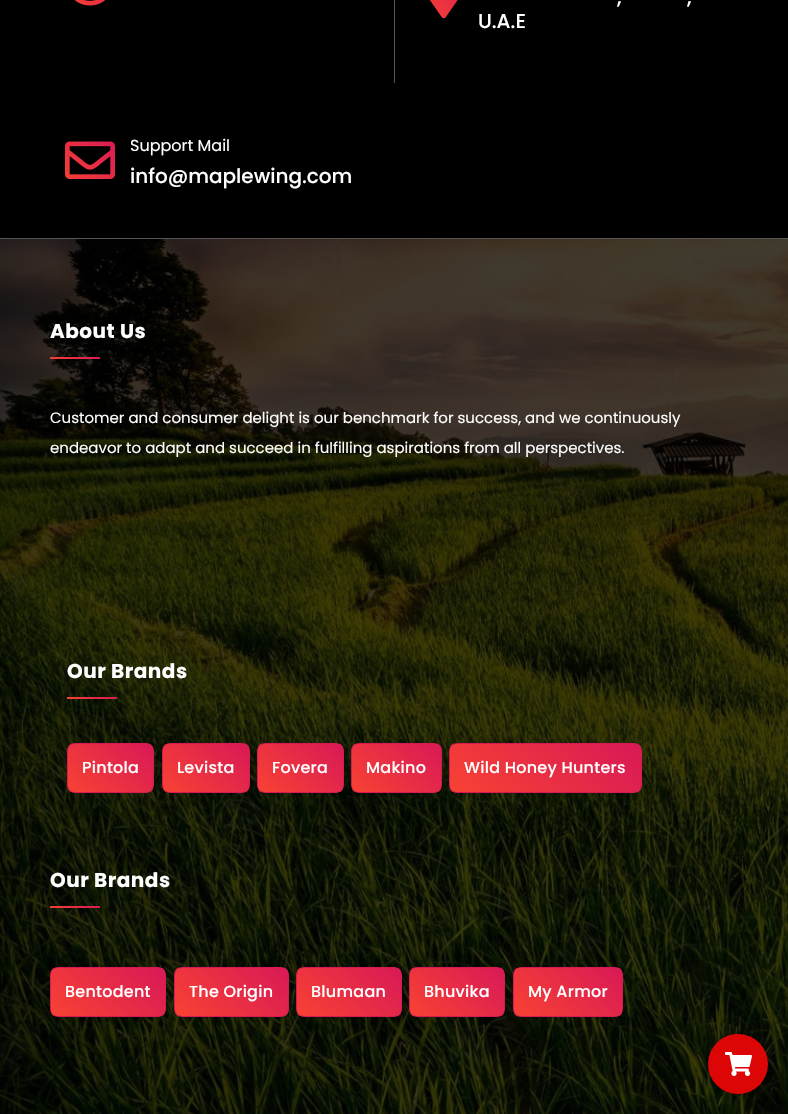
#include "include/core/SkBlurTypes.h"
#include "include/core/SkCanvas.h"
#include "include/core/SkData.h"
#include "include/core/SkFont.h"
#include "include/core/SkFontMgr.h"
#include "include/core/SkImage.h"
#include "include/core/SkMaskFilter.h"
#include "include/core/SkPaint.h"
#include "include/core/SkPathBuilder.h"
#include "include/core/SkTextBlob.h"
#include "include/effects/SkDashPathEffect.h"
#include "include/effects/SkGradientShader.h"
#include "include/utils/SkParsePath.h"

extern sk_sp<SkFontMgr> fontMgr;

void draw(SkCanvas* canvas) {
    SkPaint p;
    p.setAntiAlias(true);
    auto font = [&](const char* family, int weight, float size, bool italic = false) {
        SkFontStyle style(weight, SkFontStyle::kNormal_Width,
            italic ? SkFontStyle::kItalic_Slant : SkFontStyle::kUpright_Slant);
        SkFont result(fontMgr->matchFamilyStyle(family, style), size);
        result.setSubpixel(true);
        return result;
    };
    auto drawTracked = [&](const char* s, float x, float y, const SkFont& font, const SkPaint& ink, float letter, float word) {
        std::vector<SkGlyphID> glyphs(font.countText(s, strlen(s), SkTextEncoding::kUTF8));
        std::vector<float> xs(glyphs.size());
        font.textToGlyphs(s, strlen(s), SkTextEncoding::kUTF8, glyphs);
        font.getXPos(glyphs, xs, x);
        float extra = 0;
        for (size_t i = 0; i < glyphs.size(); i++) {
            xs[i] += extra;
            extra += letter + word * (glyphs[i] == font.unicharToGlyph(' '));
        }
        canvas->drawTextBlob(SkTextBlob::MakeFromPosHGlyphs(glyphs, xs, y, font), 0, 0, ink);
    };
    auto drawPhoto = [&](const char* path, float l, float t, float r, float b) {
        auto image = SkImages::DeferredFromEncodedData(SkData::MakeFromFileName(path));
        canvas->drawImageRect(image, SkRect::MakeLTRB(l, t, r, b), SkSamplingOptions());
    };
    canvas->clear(0xFF000000);
    p.setColor(0xFF555555);
    canvas->drawRect(SkRect::MakeLTRB(0, 238, 788, 239), p);
    drawPhoto("media/1.png", 74, 0, 106, 6);
    canvas->drawRect(SkRect::MakeLTRB(394, 0, 395, 83), p);
    drawPhoto("media/2.png", 430, 0, 458, 19);
    auto font1 = font("Poppins", 500, 20);
    p.setColor(0xFFFFFFFF);
    {
        const struct { const char* s; float x, y; } items[] = {
            {",", 617, 4},
            {",", 687, 4},
            {"U.A.E", 478, 28},
        };
        for (auto [s, x, y] : items) {
            canvas->drawString(s, x, y, font1, p);
        }
    }
    drawPhoto("media/3.png", 65, 141, 115, 179);
    auto font2 = font("Poppins", 400, 16);
    canvas->drawString("Support Mail", 130, 151, font2, p);
    canvas->drawString("info@maplewing.com", 130, 183, font1, p);
    drawPhoto("media/4.png", 0, 239, 788, 1114);
    auto font3 = font("Poppins", 700, 20);
    drawTracked("About Us", 50, 338, font3, p, 0.5f, 0);
    {
        const SkColor colors[] = {0xFFD81956, 0xFFF84233};
        const float stops[] = {0, 1};
        const SkPoint ends[] = {{87, 345}, {63, 371}};
        p.setShader(SkGradientShader::MakeLinear(ends, colors, stops, 2, SkTileMode::kClamp));
        p.setAlpha(255);
    }
    canvas->drawRect(SkRect::MakeLTRB(50, 357, 100, 359), p);
    auto font4 = font("Poppins", 400, 15);
    p.setShader(nullptr);
    p.setColor(0xFFFFFFFF);
    canvas->drawString("Customer and consumer delight is our benchmark for success, and we continuously", 50, 423, font4, p);
    canvas->drawString("endeavor to adapt and succeed in fulfilling aspirations from all perspectives.", 50, 453, font4, p);
    drawTracked("Our Brands", 67, 678, font3, p, 0.5f, 0);
    {
        const SkColor colors[] = {0xFFD81956, 0xFFF84233};
        const float stops[] = {0, 1};
        const SkPoint ends[] = {{104, 685}, {80, 711}};
        p.setShader(SkGradientShader::MakeLinear(ends, colors, stops, 2, SkTileMode::kClamp));
        p.setAlpha(255);
    }
    canvas->drawRect(SkRect::MakeLTRB(67, 697, 117, 699), p);
    canvas->save();
    canvas->clipPath(SkPathBuilder().moveTo(75, 743).lineTo(146, 743).cubicTo(150.5f, 743, 154, 746.5f, 154, 751).lineTo(154, 785).cubicTo(154, 789.5f, 150.5f, 793, 146, 793).lineTo(75, 793).cubicTo(70.5f, 793, 67, 789.5f, 67, 785).lineTo(67, 751).cubicTo(67, 746.5f, 70.5f, 743, 75, 743).close().detach(), true);
    {
        const SkColor colors[] = {0xFFD81956, 0xFFF84233};
        const float stops[] = {0, 1};
        const SkPoint ends[] = {{142, 734}, {79, 802}};
        p.setShader(SkGradientShader::MakeLinear(ends, colors, stops, 2, SkTileMode::kClamp));
        p.setAlpha(255);
    }
    canvas->drawRect(SkRect::MakeLTRB(68, 744, 153, 792), p);
    canvas->restore();
    p.setStyle(SkPaint::kStroke_Style);
    p.setStrokeWidth(1);
    p.setShader(nullptr);
    p.setColor(0xFFD81956);
    canvas->drawRoundRect(SkRect::MakeLTRB(67.5f, 743.5f, 153.5f, 792.5f), 7.5f, 7.5f, p);
    auto font5 = font("Poppins", 500, 16);
    p.setStyle(SkPaint::kFill_Style);
    p.setColor(0xFFFFFFFF);
    drawTracked("Pintola", 82, 773, font5, p, 0.25f, 0);
    canvas->save();
    canvas->clipPath(SkPathBuilder().moveTo(170, 743).lineTo(242, 743).cubicTo(246.5f, 743, 250, 746.5f, 250, 751).lineTo(250, 785).cubicTo(250, 789.5f, 246.5f, 793, 242, 793).lineTo(170, 793).cubicTo(165.5f, 793, 162, 789.5f, 162, 785).lineTo(162, 751).cubicTo(162, 746.5f, 165.5f, 743, 170, 743).close().detach(), true);
    {
        const SkColor colors[] = {0xFFD81956, 0xFFF84233};
        const float stops[] = {0, 1};
        const SkPoint ends[] = {{238, 734}, {174, 802}};
        p.setShader(SkGradientShader::MakeLinear(ends, colors, stops, 2, SkTileMode::kClamp));
        p.setAlpha(255);
    }
    canvas->drawRect(SkRect::MakeLTRB(163, 744, 249, 792), p);
    canvas->restore();
    p.setStyle(SkPaint::kStroke_Style);
    p.setShader(nullptr);
    p.setColor(0xFFD81956);
    canvas->drawRoundRect(SkRect::MakeLTRB(162.5f, 743.5f, 249.5f, 792.5f), 7.5f, 7.5f, p);
    p.setStyle(SkPaint::kFill_Style);
    p.setColor(0xFFFFFFFF);
    drawTracked("Levista", 177, 773, font5, p, 0.25f, 0);
    canvas->save();
    canvas->clipPath(SkPathBuilder().moveTo(265, 743).lineTo(336, 743).cubicTo(340.5f, 743, 344, 746.5f, 344, 751).lineTo(344, 785).cubicTo(344, 789.5f, 340.5f, 793, 336, 793).lineTo(265, 793).cubicTo(260.5f, 793, 257, 789.5f, 257, 785).lineTo(257, 751).cubicTo(257, 746.5f, 260.5f, 743, 265, 743).close().detach(), true);
    {
        const SkColor colors[] = {0xFFD81956, 0xFFF84233};
        const float stops[] = {0, 1};
        const SkPoint ends[] = {{332, 734}, {269, 802}};
        p.setShader(SkGradientShader::MakeLinear(ends, colors, stops, 2, SkTileMode::kClamp));
        p.setAlpha(255);
    }
    canvas->drawRect(SkRect::MakeLTRB(258, 744, 343, 792), p);
    canvas->restore();
    p.setStyle(SkPaint::kStroke_Style);
    p.setShader(nullptr);
    p.setColor(0xFFD81956);
    canvas->drawRoundRect(SkRect::MakeLTRB(257.5f, 743.5f, 343.5f, 792.5f), 7.5f, 7.5f, p);
    p.setStyle(SkPaint::kFill_Style);
    p.setColor(0xFFFFFFFF);
    drawTracked("Fovera", 272, 773, font5, p, 0.25f, 0);
    canvas->save();
    canvas->clipPath(SkPathBuilder().moveTo(359, 743).lineTo(434, 743).cubicTo(438.5f, 743, 442, 746.5f, 442, 751).lineTo(442, 785).cubicTo(442, 789.5f, 438.5f, 793, 434, 793).lineTo(359, 793).cubicTo(354.5f, 793, 351, 789.5f, 351, 785).lineTo(351, 751).cubicTo(351, 746.5f, 354.5f, 743, 359, 743).close().detach(), true);
    {
        const SkColor colors[] = {0xFFD81956, 0xFFF84233};
        const float stops[] = {0, 1};
        const SkPoint ends[] = {{429, 733}, {364, 803}};
        p.setShader(SkGradientShader::MakeLinear(ends, colors, stops, 2, SkTileMode::kClamp));
        p.setAlpha(255);
    }
    canvas->drawRect(SkRect::MakeLTRB(352, 744, 441, 792), p);
    canvas->restore();
    p.setStyle(SkPaint::kStroke_Style);
    p.setShader(nullptr);
    p.setColor(0xFFD81956);
    canvas->drawRoundRect(SkRect::MakeLTRB(351.5f, 743.5f, 441.5f, 792.5f), 7.5f, 7.5f, p);
    p.setStyle(SkPaint::kFill_Style);
    p.setColor(0xFFFFFFFF);
    drawTracked("Makino", 366, 773, font5, p, 0.25f, 0);
    canvas->save();
    canvas->clipPath(SkPathBuilder().moveTo(457, 743).lineTo(634, 743).cubicTo(638.5f, 743, 642, 746.5f, 642, 751).lineTo(642, 785).cubicTo(642, 789.5f, 638.5f, 793, 634, 793).lineTo(457, 793).cubicTo(452.5f, 793, 449, 789.5f, 449, 785).lineTo(449, 751).cubicTo(449, 746.5f, 452.5f, 743, 457, 743).close().detach(), true);
    {
        const SkColor colors[] = {0xFFD81956, 0xFFF84233};
        const float stops[] = {0, 1};
        const SkPoint ends[] = {{602, 708}, {489, 828}};
        p.setShader(SkGradientShader::MakeLinear(ends, colors, stops, 2, SkTileMode::kClamp));
        p.setAlpha(255);
    }
    canvas->drawRect(SkRect::MakeLTRB(450, 744, 641, 792), p);
    canvas->restore();
    p.setStyle(SkPaint::kStroke_Style);
    p.setShader(nullptr);
    p.setColor(0xFFD81956);
    canvas->drawRoundRect(SkRect::MakeLTRB(449.5f, 743.5f, 641.5f, 792.5f), 7.5f, 7.5f, p);
    p.setStyle(SkPaint::kFill_Style);
    p.setColor(0xFFFFFFFF);
    drawTracked("Wild Honey Hunters", 464, 773, font5, p, 0.25f, 0);
    drawTracked("Our Brands", 50, 887, font3, p, 0.5f, 0);
    {
        const SkColor colors[] = {0xFFD81956, 0xFFF84233};
        const float stops[] = {0, 1};
        const SkPoint ends[] = {{87, 894}, {63, 920}};
        p.setShader(SkGradientShader::MakeLinear(ends, colors, stops, 2, SkTileMode::kClamp));
        p.setAlpha(255);
    }
    canvas->drawRect(SkRect::MakeLTRB(50, 906, 100, 908), p);
    canvas->save();
    canvas->clipPath(SkPathBuilder().moveTo(58, 967).lineTo(158, 967).cubicTo(162.5f, 967, 166, 970.5f, 166, 975).lineTo(166, 1009).cubicTo(166, 1013.5f, 162.5f, 1017, 158, 1017).lineTo(58, 1017).cubicTo(53.5f, 1017, 50, 1013.5f, 50, 1009).lineTo(50, 975).cubicTo(50, 970.5f, 53.5f, 967, 58, 967).close().detach(), true);
    {
        const SkColor colors[] = {0xFFD81956, 0xFFF84233};
        const float stops[] = {0, 1};
        const SkPoint ends[] = {{146, 951}, {70, 1033}};
        p.setShader(SkGradientShader::MakeLinear(ends, colors, stops, 2, SkTileMode::kClamp));
        p.setAlpha(255);
    }
    canvas->drawRect(SkRect::MakeLTRB(51, 968, 165, 1016), p);
    canvas->restore();
    p.setStyle(SkPaint::kStroke_Style);
    p.setShader(nullptr);
    p.setColor(0xFFD81956);
    canvas->drawRoundRect(SkRect::MakeLTRB(50.5f, 967.5f, 165.5f, 1016.5f), 7.5f, 7.5f, p);
    p.setStyle(SkPaint::kFill_Style);
    p.setColor(0xFFFFFFFF);
    drawTracked("Bentodent", 65, 997, font5, p, 0.25f, 0);
    canvas->save();
    canvas->clipPath(SkPathBuilder().moveTo(182, 967).lineTo(281, 967).cubicTo(285.5f, 967, 289, 970.5f, 289, 975).lineTo(289, 1009).cubicTo(289, 1013.5f, 285.5f, 1017, 281, 1017).lineTo(182, 1017).cubicTo(177.5f, 1017, 174, 1013.5f, 174, 1009).lineTo(174, 975).cubicTo(174, 970.5f, 177.5f, 967, 182, 967).close().detach(), true);
    {
        const SkColor colors[] = {0xFFD81956, 0xFFF84233};
        const float stops[] = {0, 1};
        const SkPoint ends[] = {{270, 951}, {193, 1033}};
        p.setShader(SkGradientShader::MakeLinear(ends, colors, stops, 2, SkTileMode::kClamp));
        p.setAlpha(255);
    }
    canvas->drawRect(SkRect::MakeLTRB(175, 968, 288, 1016), p);
    canvas->restore();
    p.setStyle(SkPaint::kStroke_Style);
    p.setShader(nullptr);
    p.setColor(0xFFD81956);
    canvas->drawRoundRect(SkRect::MakeLTRB(174.5f, 967.5f, 288.5f, 1016.5f), 7.5f, 7.5f, p);
    p.setStyle(SkPaint::kFill_Style);
    p.setColor(0xFFFFFFFF);
    drawTracked("The Origin", 189, 997, font5, p, 0.25f, 0);
    canvas->save();
    canvas->clipPath(SkPathBuilder().moveTo(304, 967).lineTo(394, 967).cubicTo(398.5f, 967, 402, 970.5f, 402, 975).lineTo(402, 1009).cubicTo(402, 1013.5f, 398.5f, 1017, 394, 1017).lineTo(304, 1017).cubicTo(299.5f, 1017, 296, 1013.5f, 296, 1009).lineTo(296, 975).cubicTo(296, 970.5f, 299.5f, 967, 304, 967).close().detach(), true);
    {
        const SkColor colors[] = {0xFFD81956, 0xFFF84233};
        const float stops[] = {0, 1};
        const SkPoint ends[] = {{385, 953}, {313, 1031}};
        p.setShader(SkGradientShader::MakeLinear(ends, colors, stops, 2, SkTileMode::kClamp));
        p.setAlpha(255);
    }
    canvas->drawRect(SkRect::MakeLTRB(297, 968, 401, 1016), p);
    canvas->restore();
    p.setStyle(SkPaint::kStroke_Style);
    p.setShader(nullptr);
    p.setColor(0xFFD81956);
    canvas->drawRoundRect(SkRect::MakeLTRB(296.5f, 967.5f, 401.5f, 1016.5f), 7.5f, 7.5f, p);
    p.setStyle(SkPaint::kFill_Style);
    p.setColor(0xFFFFFFFF);
    drawTracked("Blumaan", 311, 997, font5, p, 0.25f, 0);
    canvas->save();
    canvas->clipPath(SkPathBuilder().moveTo(417, 967).lineTo(497, 967).cubicTo(501.5f, 967, 505, 970.5f, 505, 975).lineTo(505, 1009).cubicTo(505, 1013.5f, 501.5f, 1017, 497, 1017).lineTo(417, 1017).cubicTo(412.5f, 1017, 409, 1013.5f, 409, 1009).lineTo(409, 975).cubicTo(409, 970.5f, 412.5f, 967, 417, 967).close().detach(), true);
    {
        const SkColor colors[] = {0xFFD81956, 0xFFF84233};
        const float stops[] = {0, 1};
        const SkPoint ends[] = {{491, 956}, {423, 1028}};
        p.setShader(SkGradientShader::MakeLinear(ends, colors, stops, 2, SkTileMode::kClamp));
        p.setAlpha(255);
    }
    canvas->drawRect(SkRect::MakeLTRB(410, 968, 504, 1016), p);
    canvas->restore();
    p.setStyle(SkPaint::kStroke_Style);
    p.setShader(nullptr);
    p.setColor(0xFFD81956);
    canvas->drawRoundRect(SkRect::MakeLTRB(409.5f, 967.5f, 504.5f, 1016.5f), 7.5f, 7.5f, p);
    p.setStyle(SkPaint::kFill_Style);
    p.setColor(0xFFFFFFFF);
    drawTracked("Bhuvika", 424, 997, font5, p, 0.25f, 0);
    canvas->save();
    canvas->clipPath(SkPathBuilder().moveTo(521, 967).lineTo(615, 967).cubicTo(619.5f, 967, 623, 970.5f, 623, 975).lineTo(623, 1009).cubicTo(623, 1013.5f, 619.5f, 1017, 615, 1017).lineTo(521, 1017).cubicTo(516.5f, 1017, 513, 1013.5f, 513, 1009).lineTo(513, 975).cubicTo(513, 970.5f, 516.5f, 967, 521, 967).close().detach(), true);
    {
        const SkColor colors[] = {0xFFD81956, 0xFFF84233};
        const float stops[] = {0, 1};
        const SkPoint ends[] = {{605, 952}, {531, 1032}};
        p.setShader(SkGradientShader::MakeLinear(ends, colors, stops, 2, SkTileMode::kClamp));
        p.setAlpha(255);
    }
    canvas->drawRect(SkRect::MakeLTRB(514, 968, 622, 1016), p);
    canvas->restore();
    p.setStyle(SkPaint::kStroke_Style);
    p.setShader(nullptr);
    p.setColor(0xFFD81956);
    canvas->drawRoundRect(SkRect::MakeLTRB(513.5f, 967.5f, 622.5f, 1016.5f), 7.5f, 7.5f, p);
    p.setStyle(SkPaint::kFill_Style);
    p.setColor(0xFFFFFFFF);
    drawTracked("My Armor", 528, 997, font5, p, 0.25f, 0);
    p.setColor(0x80000000);
    p.setMaskFilter(SkMaskFilter::MakeBlur(kNormal_SkBlurStyle, 4));
    canvas->drawRoundRect(SkRect::MakeLTRB(708, 1034, 768, 1094), 30, 30, p);
    p.setMaskFilter(nullptr);
    p.setColor(0xFFDD0606);
    canvas->drawCircle(738, 1064, 30, p);
    drawPhoto("media/5.png", 725, 1052, 752, 1076);
}
